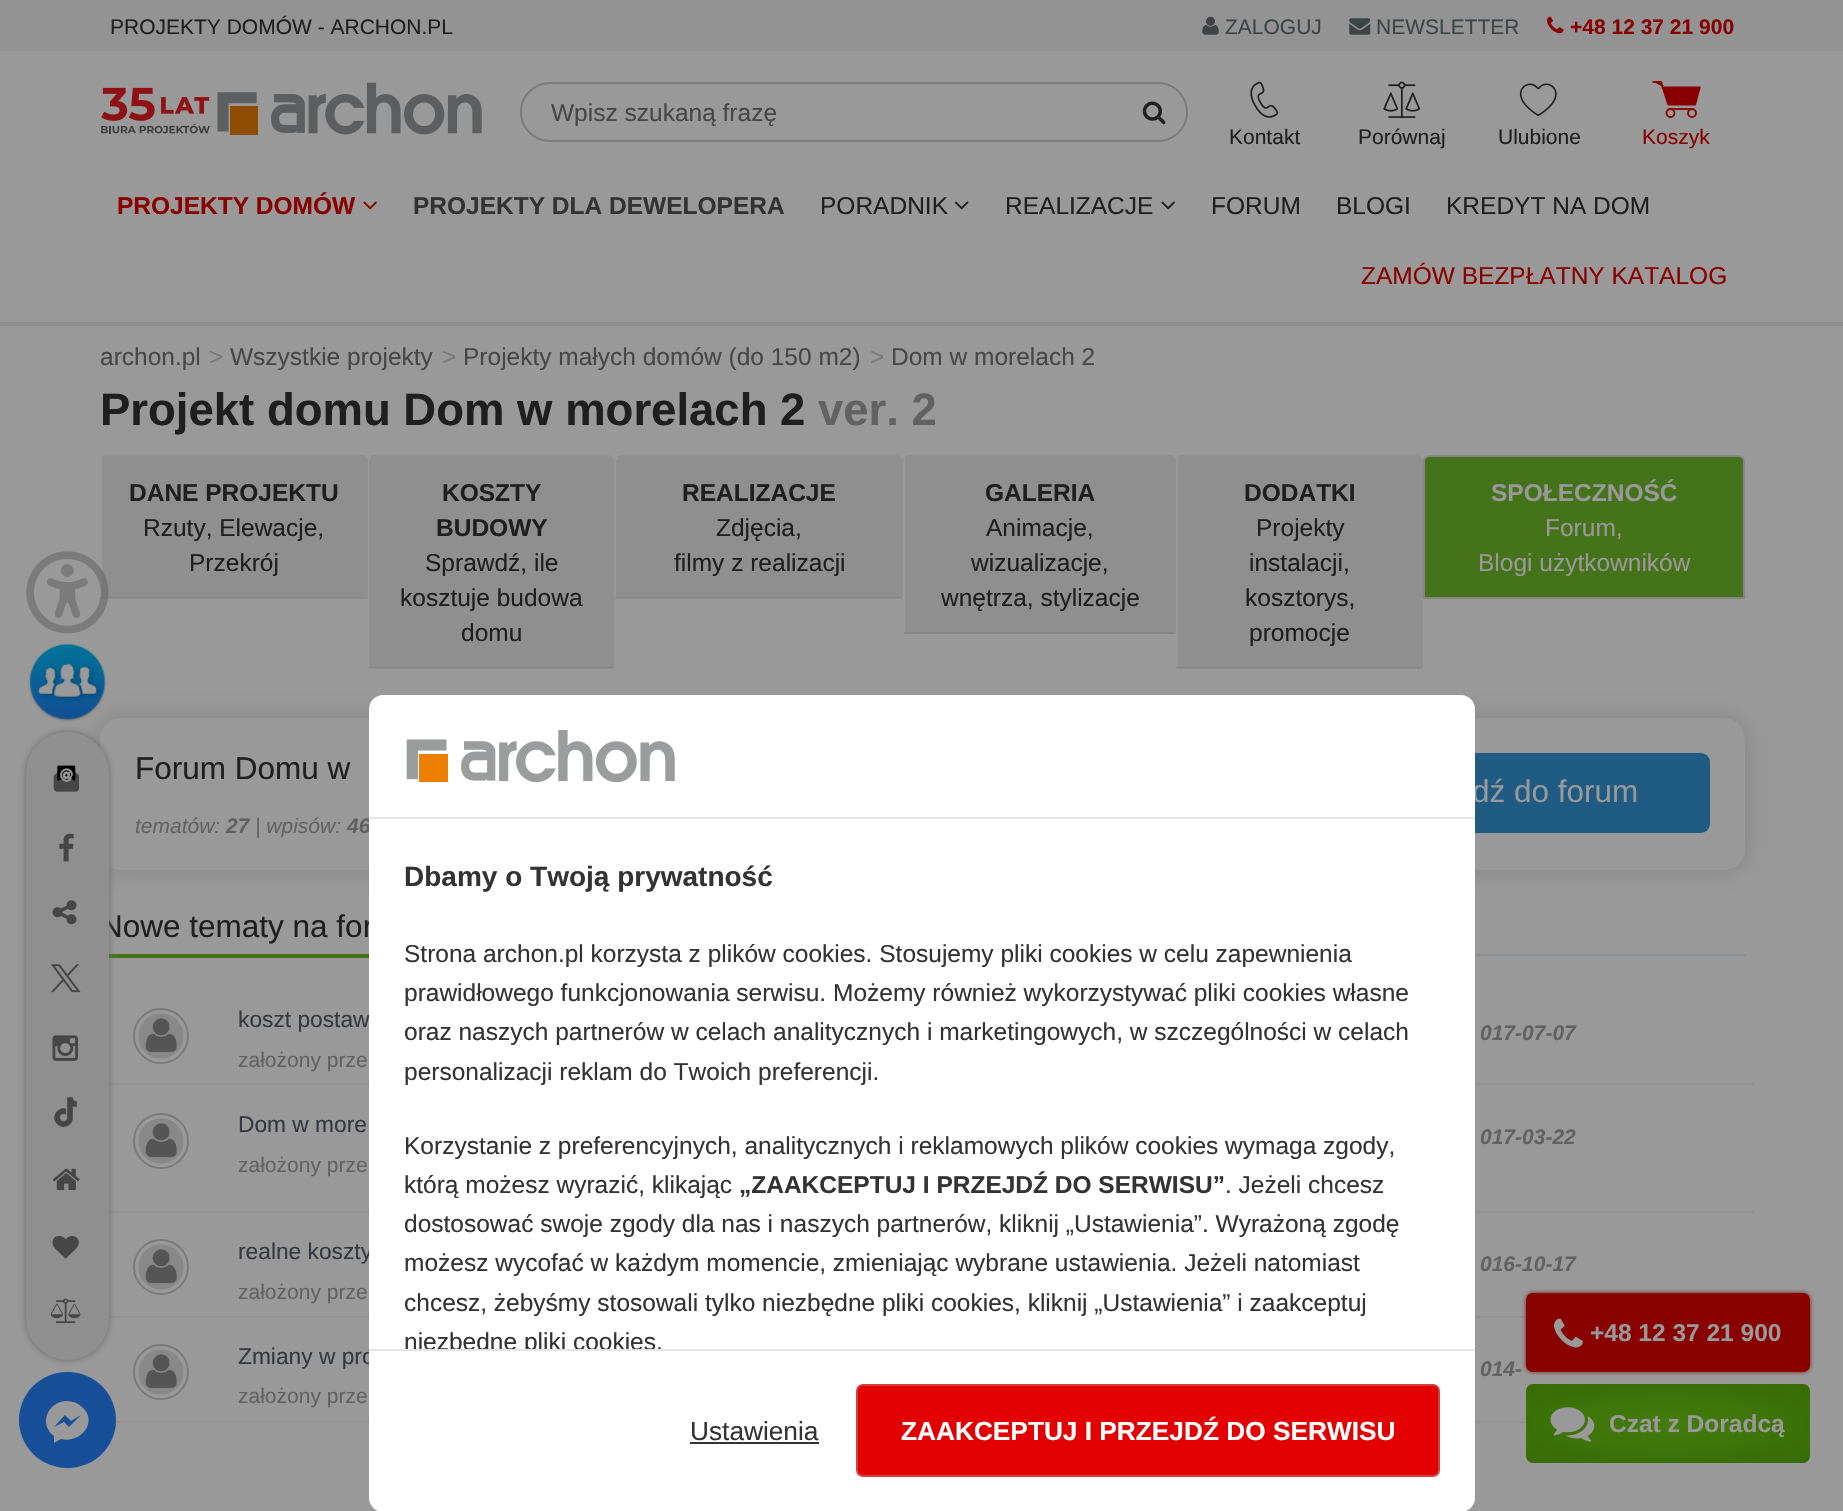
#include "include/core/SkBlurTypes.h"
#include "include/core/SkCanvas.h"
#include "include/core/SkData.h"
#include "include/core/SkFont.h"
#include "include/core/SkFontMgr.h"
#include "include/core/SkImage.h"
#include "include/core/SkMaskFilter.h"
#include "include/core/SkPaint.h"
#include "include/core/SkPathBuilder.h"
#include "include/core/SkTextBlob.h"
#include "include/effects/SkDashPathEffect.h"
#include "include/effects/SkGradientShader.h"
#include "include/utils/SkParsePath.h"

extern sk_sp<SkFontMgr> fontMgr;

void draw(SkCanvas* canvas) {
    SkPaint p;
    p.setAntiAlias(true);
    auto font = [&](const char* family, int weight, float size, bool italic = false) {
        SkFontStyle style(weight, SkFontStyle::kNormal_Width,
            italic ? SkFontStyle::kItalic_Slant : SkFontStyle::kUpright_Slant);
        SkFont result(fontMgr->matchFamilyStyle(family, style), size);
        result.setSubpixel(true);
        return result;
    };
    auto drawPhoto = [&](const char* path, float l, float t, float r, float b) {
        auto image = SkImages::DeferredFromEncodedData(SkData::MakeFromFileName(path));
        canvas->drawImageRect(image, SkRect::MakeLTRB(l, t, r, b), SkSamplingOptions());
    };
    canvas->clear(0xFF999999);
    p.setColor(0xFF939393);
    canvas->drawRect(SkRect::MakeLTRB(0, 0, 1843, 51), p);
    auto font1 = font("Liberation Sans", 400, 21);
    p.setColor(0xFF1F1F1F);
    canvas->drawString("PROJEKTY DOMÓW - ARCHON.PL", 110, 34, font1, p);
    drawPhoto("media/1.png", 1202, 16, 1219, 35);
    p.setColor(0xFF3E4346);
    canvas->drawString("ZALOGUJ", 1225, 34, font1, p);
    drawPhoto("media/2.png", 1349, 18, 1371, 35);
    canvas->drawString("NEWSLETTER", 1376, 34, font1, p);
    drawPhoto("media/3.png", 1547, 16, 1564, 34);
    auto font2 = font("Liberation Sans", 700, 21);
    p.setColor(0xFF880000);
    canvas->drawString("+48 12 37 21 900", 1570, 34, font2, p);
    p.setColor(0xFF8F8F8F);
    canvas->drawRect(SkRect::MakeLTRB(0, 322, 1843, 326), p);
    drawPhoto("media/4.png", 101, 82, 482, 135);
    p.setColor(0xFF7A7A7A);
    canvas->drawPath(SkPathBuilder(SkPathFillType::kEvenOdd).moveTo(550, 82).lineTo(1122, 82).lineTo(1122, 142).lineTo(550, 142).cubicTo(533, 142, 520, 128, 520, 112).cubicTo(520, 96, 533, 82, 550, 82).close().moveTo(550, 84).lineTo(1122, 84).lineTo(1122, 140).lineTo(550, 140).cubicTo(534, 140, 522, 127, 522, 112).cubicTo(522, 97, 534, 84, 550, 84).close().detach(), p);
    canvas->save();
    canvas->clipRect(SkRect::MakeLTRB(551, 98, 1111, 126));
    auto font3 = font("Liberation Sans", 400, 24.5f);
    p.setColor(0xFF474747);
    canvas->drawString("Wpisz szukaną frazę", 551, 121, font3, p);
    canvas->restore();
    p.setColor(0xFF7A7A7A);
    canvas->drawPath(SkPathBuilder(SkPathFillType::kEvenOdd).moveTo(1122, 82).lineTo(1158, 82).cubicTo(1175, 82, 1188, 96, 1188, 112).cubicTo(1188, 128, 1175, 142, 1158, 142).lineTo(1122, 142).close().moveTo(1122, 84).lineTo(1158, 84).cubicTo(1174, 84, 1186, 97, 1186, 112).cubicTo(1186, 127, 1174, 140, 1158, 140).lineTo(1122, 140).close().detach(), p);
    drawPhoto("media/5.png", 1142, 101, 1166, 125);
    drawPhoto("media/6.png", 1250, 81, 1279, 118);
    p.setColor(0xFF1F1F1F);
    canvas->drawString("Kontakt", 1229, 144, font1, p);
    drawPhoto("media/7.png", 1383, 81, 1421, 118);
    canvas->drawString("Porównaj", 1358, 144, font1, p);
    drawPhoto("media/8.png", 1519, 83, 1557, 116);
    canvas->drawString("Ulubione", 1498, 144, font1, p);
    p.setColor(0xFF880000);
    canvas->drawPath(SkPathBuilder().moveTo(1654, 82).lineTo(1661, 82).lineTo(1669, 105).lineTo(1695, 105).lineTo(1699, 87).lineTo(1663, 87).detach(), p);
    canvas->save();
    canvas->clipRect(SkRect::MakeLTRB(1652, 81, 1701, 119));
    p.setStyle(SkPaint::kStroke_Style);
    p.setStrokeWidth(2.2f);
    p.setStrokeCap(SkPaint::kRound_Cap);
    p.setStrokeJoin(SkPaint::kRound_Join);
    canvas->drawPath(SkPathBuilder().moveTo(1653.5f, 82).lineTo(1661, 82).lineTo(1668.5f, 104.5f).lineTo(1695, 104.5f).lineTo(1699.5f, 87.5f).lineTo(1662.5f, 87.5f).detach(), p);
    canvas->restore();
    p.setStrokeWidth(1.8f);
    p.setStrokeCap(SkPaint::kButt_Cap);
    p.setStrokeJoin(SkPaint::kMiter_Join);
    canvas->drawCircle(1692, 113, 4, p);
    canvas->drawCircle(1670.5f, 113, 4, p);
    p.setStyle(SkPaint::kFill_Style);
    p.setColor(0xE6880000);
    canvas->drawRect(SkRect::MakeLTRB(1671, 108, 1692, 110), p);
    p.setColor(0xFF880000);
    canvas->drawString("Koszyk", 1642, 144, font1, p);
    auto font4 = font("Liberation Sans", 700, 24.5f);
    canvas->drawString("PROJEKTY DOMÓW", 117, 214, font4, p);
    drawPhoto("media/9.png", 363, 201, 377, 210);
    p.setColor(0xFF333333);
    canvas->drawString("PROJEKTY DLA DEWELOPERA", 413, 214, font4, p);
    p.setColor(0xFF1F1F1F);
    canvas->drawString("PORADNIK", 820, 214, font3, p);
    drawPhoto("media/10.png", 954, 201, 969, 210);
    canvas->drawString("REALIZACJE", 1005, 214, font3, p);
    drawPhoto("media/11.png", 1161, 201, 1175, 210);
    {
        const struct { const char* s; float x, y; } items[] = {
            {"FORUM", 1211, 214},
            {"BLOGI", 1336, 214},
            {"KREDYT NA DOM", 1446, 214},
        };
        for (auto [s, x, y] : items) {
            canvas->drawString(s, x, y, font3, p);
        }
    }
    p.setColor(0xFF880000);
    canvas->drawString("ZAMÓW BEZPŁATNY KATALOG", 1361, 284, font3, p);
    p.setColor(0xFF474747);
    canvas->drawString("archon.pl", 100, 365, font3, p);
    p.setColor(0xFF7A7A7A);
    canvas->drawString(">", 209, 365, font3, p);
    p.setColor(0xFF474747);
    canvas->drawString("Wszystkie projekty", 230, 365, font3, p);
    p.setColor(0xFF7A7A7A);
    canvas->drawString(">", 442, 365, font3, p);
    p.setColor(0xFF474747);
    canvas->drawString("Projekty małych domów (do 150 m2)", 463, 365, font3, p);
    p.setColor(0xFF7A7A7A);
    canvas->drawString(">", 870, 365, font3, p);
    p.setColor(0xFF474747);
    canvas->drawString("Dom w morelach 2", 891, 365, font3, p);
    auto font5 = font("Liberation Sans", 700, 45.5f);
    p.setColor(0xFF1F1F1F);
    canvas->drawString("Projekt domu Dom w morelach 2", 100, 425, font5, p);
    p.setColor(0xFF626262);
    canvas->drawString("ver. 2", 818, 425, font5, p);
    p.setColor(0xFF8F8F8F);
    canvas->drawPath(SkPathBuilder().moveTo(107, 455).lineTo(361, 455).cubicTo(365, 455, 368, 458, 368, 462).lineTo(368, 599).lineTo(100, 599).lineTo(100, 462).cubicTo(100, 458, 103, 455, 107, 455).close().detach(), p);
    p.setColor(0xFF858585);
    canvas->drawPath(SkPathBuilder().moveTo(367, 598).lineTo(100, 598).lineTo(102, 596).lineTo(102, 597).lineTo(366, 597).close().detach(), p);
    p.setColor(0xFF999999);
    canvas->drawPath(SkPathBuilder().moveTo(102, 457).cubicTo(101, 458, 100, 460, 100, 462).lineTo(100, 598).lineTo(102, 596).lineTo(102, 461).lineTo(103, 459).close().detach(), p);
    drawPhoto("media/12.png", 26, 551, 109, 634);
    p.setColor(0xFF1F1F1F);
    canvas->drawString("DANE PROJEKTU", 129, 501, font4, p);
    canvas->drawString("Rzuty, Elewacje,", 143, 536, font3, p);
    canvas->drawString("Przekrój", 189, 571, font3, p);
    p.setColor(0xFF8F8F8F);
    canvas->drawPath(SkPathBuilder().moveTo(375, 455).lineTo(607, 455).cubicTo(611, 455, 614, 458, 614, 462).lineTo(614, 669).lineTo(368, 669).lineTo(368, 462).cubicTo(368, 458, 371, 455, 375, 455).close().detach(), p);
    p.setColor(0xFF858585);
    canvas->drawPath(SkPathBuilder().moveTo(614, 668).lineTo(368, 668).lineTo(369, 667).lineTo(612, 667).lineTo(612, 666).close().detach(), p);
    p.setColor(0xFF999999);
    canvas->drawPath(SkPathBuilder().moveTo(370, 457).lineTo(368, 461).lineTo(368, 668).lineTo(369, 667).lineTo(369, 461).lineTo(371, 458).close().detach(), p);
    p.setColor(0xFF1F1F1F);
    canvas->drawString("KOSZTY", 442, 501, font4, p);
    canvas->drawString("BUDOWY", 436, 536, font4, p);
    {
        const struct { const char* s; float x, y; } items[] = {
            {"Sprawdź, ile", 425, 571},
            {"kosztuje budowa", 400, 606},
            {"domu", 461, 641},
        };
        for (auto [s, x, y] : items) {
            canvas->drawString(s, x, y, font3, p);
        }
    }
    p.setColor(0xFF8F8F8F);
    canvas->drawPath(SkPathBuilder().moveTo(621, 455).lineTo(896, 455).cubicTo(900, 455, 903, 458, 903, 462).lineTo(903, 599).lineTo(614, 599).lineTo(614, 462).cubicTo(614, 458, 617, 455, 621, 455).close().detach(), p);
    p.setColor(0xFF858585);
    canvas->drawPath(SkPathBuilder().moveTo(902, 598).lineTo(615, 598).lineTo(616, 597).lineTo(901, 597).lineTo(901, 596).close().detach(), p);
    p.setColor(0xFF999999);
    canvas->drawPath(SkPathBuilder().moveTo(614, 460).lineTo(616, 457).lineTo(618, 458).lineTo(616, 461).lineTo(616, 597).lineTo(615, 598).lineTo(614, 598).close().detach(), p);
    p.setColor(0xFF1F1F1F);
    canvas->drawString("REALIZACJE", 682, 501, font4, p);
    canvas->drawString("Zdjęcia,", 716, 536, font3, p);
    canvas->drawString("filmy z realizacji", 674, 571, font3, p);
    p.setColor(0xFF8F8F8F);
    canvas->drawPath(SkPathBuilder().moveTo(910, 455).lineTo(1169, 455).cubicTo(1173, 455, 1176, 458, 1176, 462).lineTo(1176, 634).lineTo(903, 634).lineTo(903, 462).cubicTo(903, 458, 906, 455, 910, 455).close().detach(), p);
    p.setColor(0xFF858585);
    canvas->drawPath(SkPathBuilder().moveTo(1176, 634).lineTo(903, 634).lineTo(905, 632).lineTo(1174, 632).close().detach(), p);
    p.setColor(0xFF999999);
    canvas->drawPath(SkPathBuilder().moveTo(903, 634).lineTo(905, 632).lineTo(905, 461).lineTo(906, 458).lineTo(905, 457).cubicTo(904, 458, 903, 460, 903, 462).close().detach(), p);
    p.setColor(0xFF1F1F1F);
    canvas->drawString("GALERIA", 985, 501, font4, p);
    {
        const struct { const char* s; float x, y; } items[] = {
            {"Animacje,", 986, 536},
            {"wizualizacje,", 971, 571},
            {"wnętrza, stylizacje", 941, 606},
        };
        for (auto [s, x, y] : items) {
            canvas->drawString(s, x, y, font3, p);
        }
    }
    p.setColor(0xFF8F8F8F);
    canvas->drawPath(SkPathBuilder().moveTo(1183, 455).lineTo(1416, 455).cubicTo(1420, 455, 1423, 458, 1423, 462).lineTo(1423, 669).lineTo(1176, 669).lineTo(1176, 462).cubicTo(1176, 458, 1179, 455, 1183, 455).close().detach(), p);
    p.setColor(0xFF858585);
    canvas->drawPath(SkPathBuilder().moveTo(1422, 668).lineTo(1176, 668).lineTo(1178, 666).lineTo(1178, 667).lineTo(1421, 667).close().detach(), p);
    p.setColor(0xFF999999);
    canvas->drawPath(SkPathBuilder().moveTo(1176, 462).lineTo(1176, 668).lineTo(1178, 666).lineTo(1178, 462).cubicTo(1178, 460, 1178, 459, 1179, 458).lineTo(1178, 457).cubicTo(1177, 458, 1176, 460, 1176, 462).close().detach(), p);
    p.setColor(0xFF1F1F1F);
    canvas->drawString("DODATKI", 1244, 501, font4, p);
    {
        const struct { const char* s; float x, y; } items[] = {
            {"Projekty", 1256, 536},
            {"instalacji,", 1249, 571},
            {"kosztorys,", 1245, 606},
            {"promocje", 1249, 641},
        };
        for (auto [s, x, y] : items) {
            canvas->drawString(s, x, y, font3, p);
        }
    }
    p.setColor(0xFF44731A);
    canvas->drawPath(SkPathBuilder().moveTo(1430, 456).lineTo(1738, 456).cubicTo(1741.5f, 456, 1744, 458.5f, 1744, 462).lineTo(1744, 598).lineTo(1424, 598).lineTo(1424, 462).cubicTo(1424, 458.5f, 1426.5f, 456, 1430, 456).close().detach(), p);
    p.setStyle(SkPaint::kStroke_Style);
    p.setStrokeWidth(2);
    p.setColor(0xFF858585);
    canvas->drawPath(SkPathBuilder().moveTo(1430, 456).lineTo(1738, 456).cubicTo(1741.5f, 456, 1744, 458.5f, 1744, 462).lineTo(1744, 598).lineTo(1424, 598).lineTo(1424, 462).cubicTo(1424, 458.5f, 1426.5f, 456, 1430, 456).close().detach(), p);
    p.setStyle(SkPaint::kFill_Style);
    p.setColor(0xFF999999);
    canvas->drawString("SPOŁECZNOŚĆ", 1491, 501, font4, p);
    canvas->drawString("Forum,", 1545, 536, font3, p);
    canvas->drawString("Blogi użytkowników", 1478, 571, font3, p);
    canvas->save();
    canvas->clipPath(SkPathBuilder(SkPathFillType::kEvenOdd).moveTo(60, 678).lineTo(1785, 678).lineTo(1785, 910).lineTo(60, 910).close().moveTo(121, 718).lineTo(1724, 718).cubicTo(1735.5f, 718, 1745, 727.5f, 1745, 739).lineTo(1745, 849).cubicTo(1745, 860.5f, 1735.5f, 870, 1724, 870).lineTo(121, 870).cubicTo(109.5f, 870, 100, 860.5f, 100, 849).lineTo(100, 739).cubicTo(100, 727.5f, 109.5f, 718, 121, 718).close().detach(), true);
    p.setColor(0xFF838383);
    p.setMaskFilter(SkMaskFilter::MakeBlur(kNormal_SkBlurStyle, 13));
    canvas->drawRoundRect(SkRect::MakeLTRB(100, 718, 1745, 870), 21, 21, p);
    p.setMaskFilter(nullptr);
    canvas->restore();
    auto font6 = font("Liberation Sans", 400, 31.5f);
    p.setColor(0xFF1F1F1F);
    canvas->drawString("Forum Domu w", 135, 779, font6, p);
    auto font7 = font("Liberation Sans", 400, 21, true);
    p.setColor(0xFF626262);
    canvas->drawString("tematów:", 135, 833, font7, p);
    auto font8 = font("Liberation Sans", 700, 21, true);
    canvas->drawString("27", 226, 833, font8, p);
    canvas->drawString("| wpisów:", 255, 833, font7, p);
    canvas->drawString("46", 347, 833, font8, p);
    p.setColor(0xFF1F5B83);
    canvas->drawRoundRect(SkRect::MakeLTRB(1330, 753, 1710, 833), 9, 9, p);
    p.setColor(0xFF999999);
    canvas->drawString("dź do forum", 1472, 802, font6, p);
    p.setColor(0xFF898C90);
    canvas->drawRect(SkRect::MakeLTRB(1475, 954, 1745, 956), p);
    p.setColor(0xFF44731A);
    canvas->drawRect(SkRect::MakeLTRB(109, 954, 369, 958), p);
    p.setColor(0xFF1F1F1F);
    canvas->drawString("Nowe tematy na for", 100, 937, font6, p);
    p.setColor(0xFF929292);
    canvas->drawRect(SkRect::MakeLTRB(109, 1083, 1754, 1085), p);
    p.setStyle(SkPaint::kStroke_Style);
    p.setColor(0xFF7A7A7A);
    canvas->drawCircle(161, 1036, 27, p);
    drawPhoto("media/13.png", 138, 1013, 184, 1059);
    auto font9 = font("Liberation Sans", 400, 22.75f);
    p.setStyle(SkPaint::kFill_Style);
    p.setColor(0xFF35393F);
    canvas->drawString("koszt postaw", 238, 1027, font9, p);
    p.setColor(0xFF626262);
    canvas->drawString("założony prze", 238, 1067, font1, p);
    canvas->drawString("017-07-07", 1480, 1040, font8, p);
    p.setColor(0xFF929292);
    canvas->drawRect(SkRect::MakeLTRB(109, 1211, 1754, 1213), p);
    p.setStyle(SkPaint::kStroke_Style);
    p.setColor(0xFF7A7A7A);
    canvas->drawCircle(161, 1141, 27, p);
    drawPhoto("media/14.png", 138, 1118, 184, 1164);
    p.setStyle(SkPaint::kFill_Style);
    p.setColor(0xFF35393F);
    canvas->drawString("Dom w more", 238, 1132, font9, p);
    p.setColor(0xFF626262);
    canvas->drawString("założony prze", 238, 1172, font1, p);
    canvas->drawString("017-03-22", 1480, 1144, font8, p);
    p.setColor(0xFF929292);
    canvas->drawRect(SkRect::MakeLTRB(109, 1316, 1526, 1318), p);
    p.setStyle(SkPaint::kStroke_Style);
    p.setColor(0xFF7A7A7A);
    canvas->drawCircle(161, 1267, 27, p);
    drawPhoto("media/15.png", 138, 1244, 184, 1290);
    p.setStyle(SkPaint::kFill_Style);
    p.setColor(0xFF35393F);
    canvas->drawString("realne koszty", 238, 1259, font9, p);
    p.setColor(0xFF626262);
    canvas->drawString("założony prze", 238, 1299, font1, p);
    canvas->drawString("016-10-17", 1480, 1271, font8, p);
    p.setColor(0xFF929292);
    canvas->drawRect(SkRect::MakeLTRB(115, 1421, 1526, 1423), p);
    p.setStyle(SkPaint::kStroke_Style);
    p.setColor(0xFF7A7A7A);
    canvas->drawCircle(161, 1372, 27, p);
    drawPhoto("media/14.png", 138, 1349, 184, 1395);
    p.setStyle(SkPaint::kFill_Style);
    p.setColor(0xFF35393F);
    canvas->drawString("Zmiany w pro", 238, 1364, font9, p);
    p.setColor(0xFF626262);
    canvas->drawString("założony prze", 238, 1403, font1, p);
    canvas->drawString("014-", 1480, 1376, font8, p);
    p.setColor(0xFF6A6A6A);
    p.setMaskFilter(SkMaskFilter::MakeBlur(kNormal_SkBlurStyle, 3.5f));
    canvas->drawRoundRect(SkRect::MakeLTRB(26, 732, 109, 1360), 41.5f, 41.5f, p);
    p.setMaskFilter(nullptr);
    drawPhoto("media/16.png", 28, 643, 107, 722);
    p.setColor(0xFF8F8F8F);
    canvas->drawRoundRect(SkRect::MakeLTRB(26, 732, 109, 1360), 41.5f, 41.5f, p);
    drawPhoto("media/17.png", 53, 765, 79, 792);
    drawPhoto("media/18.png", 59, 833, 74, 862);
    drawPhoto("media/19.png", 52, 900, 77, 925);
    drawPhoto("media/20.png", 51, 964, 81, 993);
    drawPhoto("media/21.png", 52, 1035, 78, 1061);
    drawPhoto("media/22.png", 54, 1097, 77, 1127);
    drawPhoto("media/23.png", 53, 1168, 80, 1190);
    drawPhoto("media/24.png", 52, 1235, 79, 1259);
    drawPhoto("media/25.png", 50, 1298, 81, 1323);
    p.setColor(0xFFFFFFFF);
    canvas->drawPath(SkPathBuilder().moveTo(383, 695).lineTo(1461, 695).cubicTo(1468.5f, 695, 1475, 701.5f, 1475, 709).lineTo(1475, 819).lineTo(369, 819).lineTo(369, 709).cubicTo(369, 701.5f, 375.5f, 695, 383, 695).close().detach(), p);
    p.setColor(0xFFE5E5E5);
    canvas->drawRect(SkRect::MakeLTRB(369, 817, 1475, 819), p);
    drawPhoto("media/26.png", 406, 730, 675, 782);
    p.setColor(0xFFFFFFFF);
    canvas->drawRect(SkRect::MakeLTRB(369, 819, 1475, 1349), p);
    auto font10 = font("Liberation Sans", 700, 28);
    p.setColor(0xFF333333);
    canvas->drawString("Dbamy o Twoją prywatność", 404, 886, font10, p);
    {
        const struct { const char* s; float x, y; } items[] = {
            {"Strona archon.pl korzysta z plików cookies. Stosujemy pliki cookies w celu zapewnienia", 404, 962},
            {"prawidłowego funkcjonowania serwisu. Możemy również wykorzystywać pliki cookies własne", 404, 1001},
            {"oraz naszych partnerów w celach analitycznych i marketingowych, w szczególności w celach", 404, 1040},
            {"personalizacji reklam do Twoich preferencji.", 404, 1080},
            {"Korzystanie z preferencyjnych, analitycznych i reklamowych plików cookies wymaga zgody,", 404, 1154},
            {"którą możesz wyrazić, klikając", 404, 1193},
        };
        for (auto [s, x, y] : items) {
            canvas->drawString(s, x, y, font3, p);
        }
    }
    canvas->drawString("„ZAAKCEPTUJ I PRZEJDŹ DO SERWISU”", 739, 1193, font4, p);
    {
        const struct { const char* s; float x, y; } items[] = {
            {". Jeżeli chcesz", 1225, 1193},
            {"dostosować swoje zgody dla nas i naszych partnerów, kliknij „Ustawienia”. Wyrażoną zgodę", 404, 1232},
            {"możesz wycofać w każdym momencie, zmieniając wybrane ustawienia. Jeżeli natomiast", 404, 1271},
            {"chcesz, żebyśmy stosowali tylko niezbędne pliki cookies, kliknij „Ustawienia” i zaakceptuj", 404, 1311},
        };
        for (auto [s, x, y] : items) {
            canvas->drawString(s, x, y, font3, p);
        }
    }
    canvas->save();
    canvas->clipRect(SkRect::MakeLTRB(369, 819, 1475, 1349));
    canvas->drawString("niezbędne pliki cookies.", 404, 1350, font3, p);
    canvas->restore();
    p.setColor(0xFFFFFFFF);
    canvas->drawPath(SkPathBuilder().moveTo(369, 1349).lineTo(1475, 1349).lineTo(1475, 1498).cubicTo(1475, 1505.5f, 1468.5f, 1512, 1461, 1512).lineTo(383, 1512).cubicTo(375.5f, 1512, 369, 1505.5f, 369, 1498).close().detach(), p);
    p.setColor(0xFFE5E5E5);
    canvas->drawRect(SkRect::MakeLTRB(369, 1349, 1475, 1351), p);
    auto font11 = font("Liberation Sans", 400, 26.25f);
    p.setColor(0xFF333333);
    canvas->drawString("Ustawienia", 690, 1440, font11, p);
    canvas->drawRect(SkRect::MakeLTRB(690, 1442, 819, 1444), p);
    p.setColor(0xFFE20000);
    canvas->drawRoundRect(SkRect::MakeLTRB(857, 1385, 1439, 1476), 6, 6, p);
    p.setStyle(SkPaint::kStroke_Style);
    p.setColor(0xFFD43F3A);
    canvas->drawRoundRect(SkRect::MakeLTRB(857, 1385, 1439, 1476), 6, 6, p);
    auto font12 = font("Liberation Sans", 700, 26.25f);
    p.setStyle(SkPaint::kFill_Style);
    p.setColor(0xFFFFFFFF);
    canvas->drawString("ZAAKCEPTUJ I PRZEJDŹ DO SERWISU", 901, 1440, font12, p);
    p.setColor(0xFF791716);
    p.setMaskFilter(SkMaskFilter::MakeBlur(kNormal_SkBlurStyle, 2));
    canvas->drawRoundRect(SkRect::MakeLTRB(1526, 1293, 1810, 1372), 7, 7, p);
    p.setMaskFilter(nullptr);
    p.setColor(0xFF880200);
    canvas->drawRoundRect(SkRect::MakeLTRB(1526, 1293, 1810, 1372), 7, 7, p);
    drawPhoto("media/27.png", 1554, 1318, 1583, 1348);
    p.setColor(0xFF999999);
    canvas->drawString("+48 12 37 21 900", 1590, 1341, font4, p);
    p.setColor(0xFF174F98);
    canvas->drawRoundRect(SkRect::MakeLTRB(19, 1372, 116, 1468), 48, 48, p);
    p.setColor(0xFF999999);
    canvas->drawPath(SkPathBuilder(SkPathFillType::kEvenOdd).moveTo(67, 1401).cubicTo(48, 1401, 38, 1424, 54, 1436).lineTo(54, 1443).lineTo(61, 1439).cubicTo(80, 1444, 99, 1422, 82, 1407).cubicTo(78, 1403, 73, 1401, 67, 1401).close().moveTo(69, 1427).lineTo(64, 1422).lineTo(54, 1427).lineTo(65, 1415).lineTo(71, 1421).lineTo(81, 1415).close().detach(), p);
    {
        const SkColor colors[] = {0xFF447C0D, 0xFF386B04};
        const float stops[] = {0, 1};
        SkMatrix m = SkMatrix::Translate(1668, 1424).preScale(200, 56);
        p.setShader(SkGradientShader::MakeRadial({0, 0}, 1, colors, stops, 2, SkTileMode::kClamp, 0, &m));
        p.setAlpha(255);
    }
    canvas->drawRoundRect(SkRect::MakeLTRB(1526, 1384, 1810, 1463), 7, 7, p);
    drawPhoto("media/28.png", 1550, 1407, 1595, 1442);
    p.setShader(nullptr);
    p.setColor(0xFF999999);
    canvas->drawString("Czat z Doradcą", 1609, 1432, font4, p);
}
